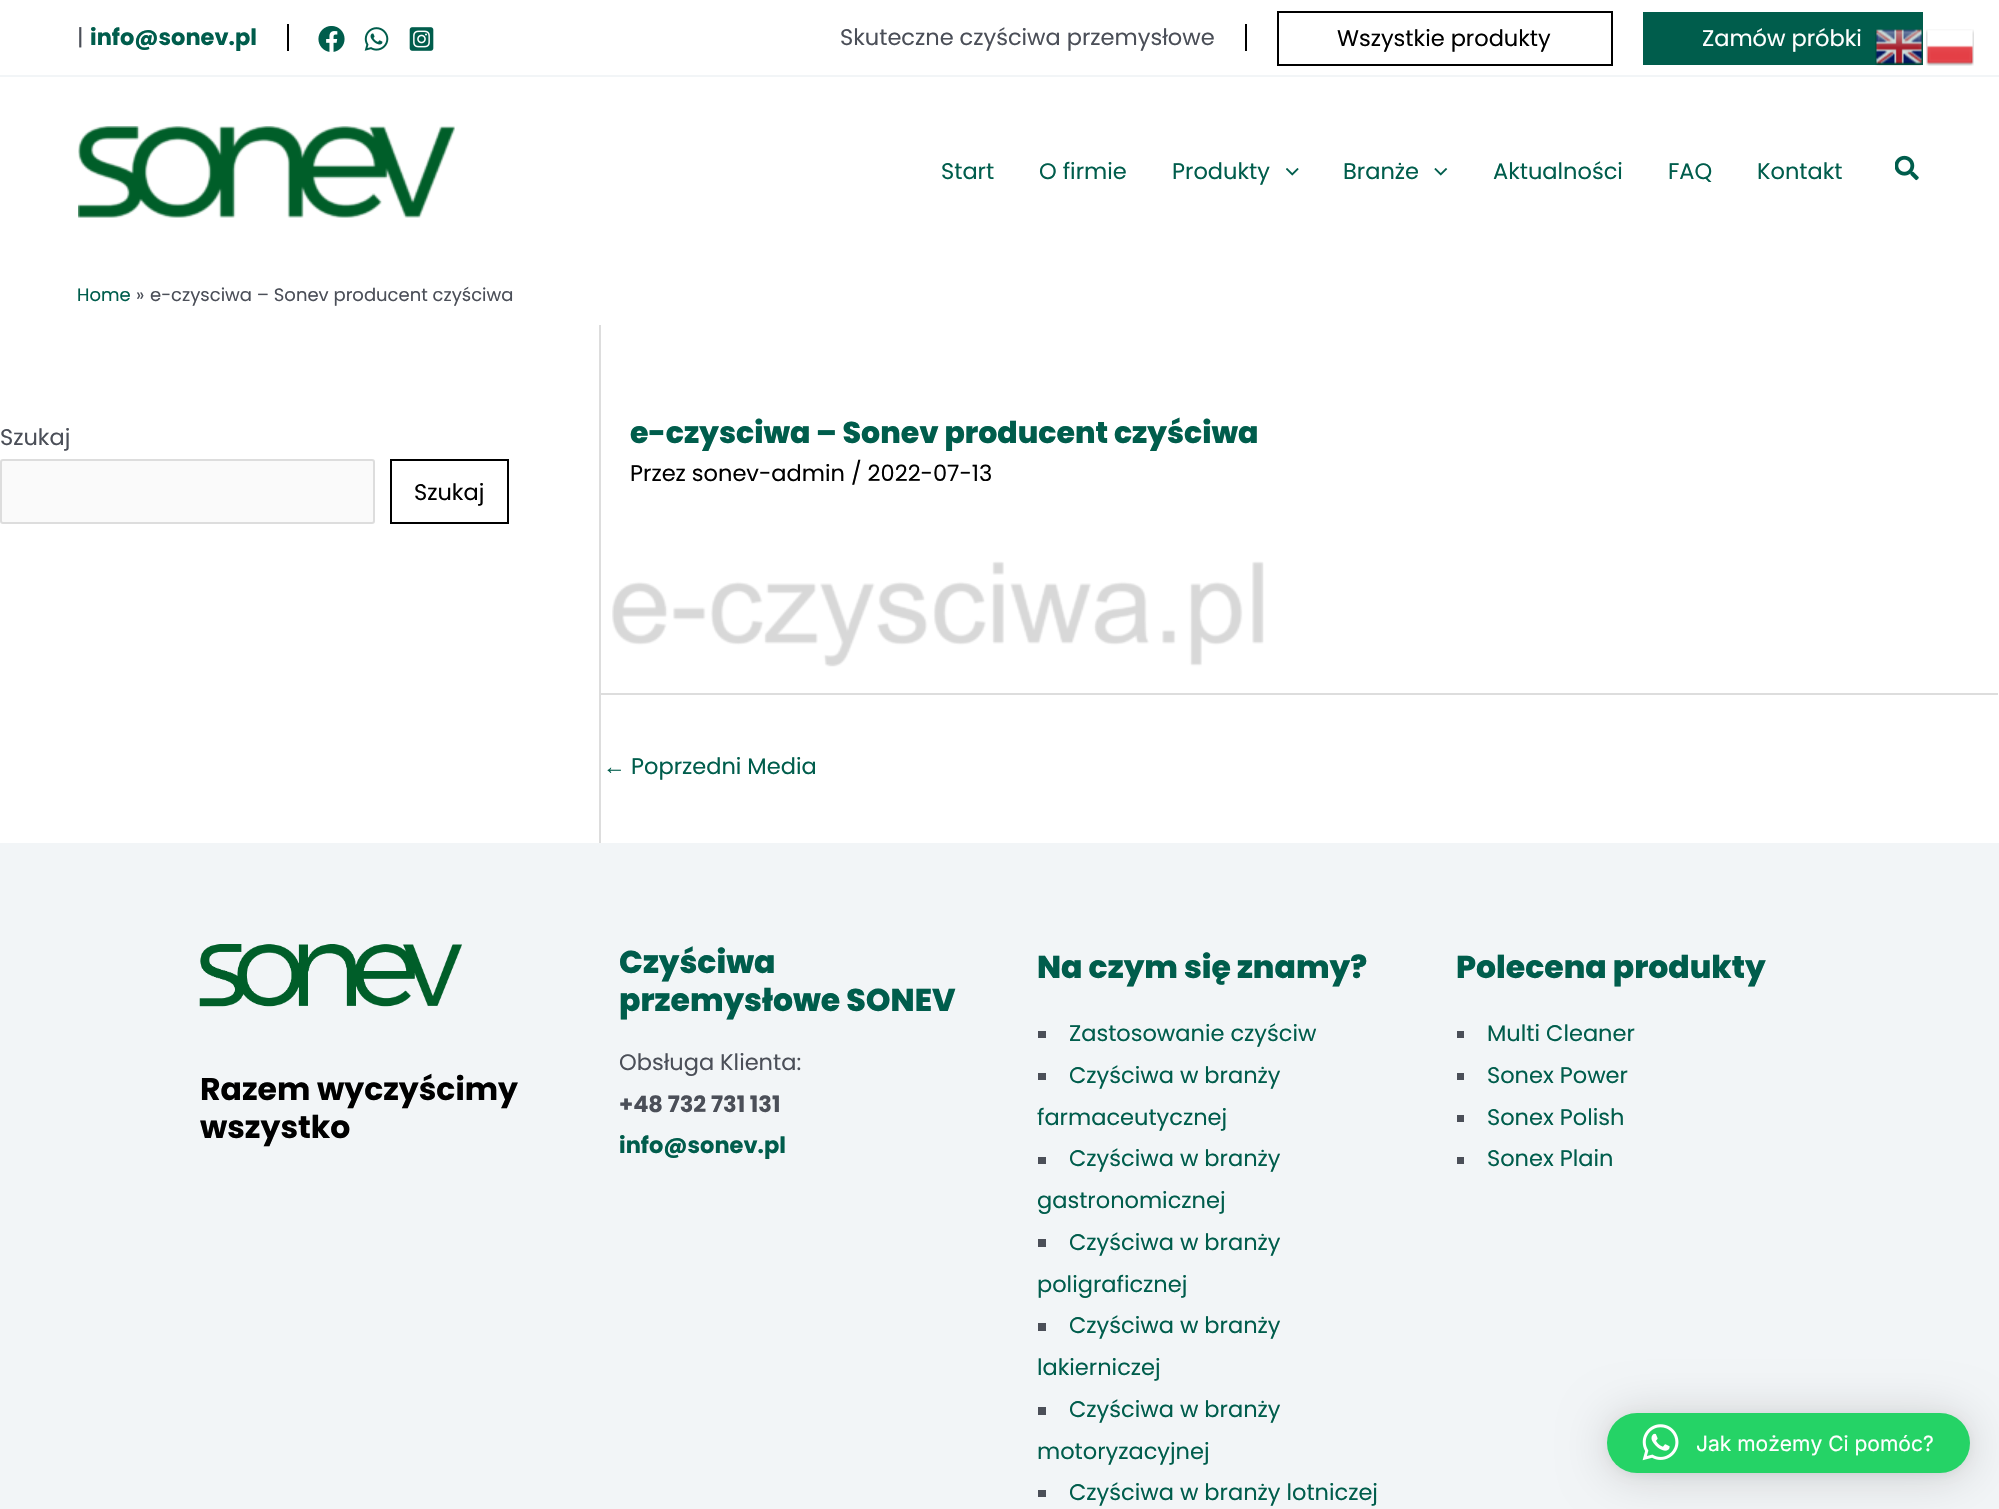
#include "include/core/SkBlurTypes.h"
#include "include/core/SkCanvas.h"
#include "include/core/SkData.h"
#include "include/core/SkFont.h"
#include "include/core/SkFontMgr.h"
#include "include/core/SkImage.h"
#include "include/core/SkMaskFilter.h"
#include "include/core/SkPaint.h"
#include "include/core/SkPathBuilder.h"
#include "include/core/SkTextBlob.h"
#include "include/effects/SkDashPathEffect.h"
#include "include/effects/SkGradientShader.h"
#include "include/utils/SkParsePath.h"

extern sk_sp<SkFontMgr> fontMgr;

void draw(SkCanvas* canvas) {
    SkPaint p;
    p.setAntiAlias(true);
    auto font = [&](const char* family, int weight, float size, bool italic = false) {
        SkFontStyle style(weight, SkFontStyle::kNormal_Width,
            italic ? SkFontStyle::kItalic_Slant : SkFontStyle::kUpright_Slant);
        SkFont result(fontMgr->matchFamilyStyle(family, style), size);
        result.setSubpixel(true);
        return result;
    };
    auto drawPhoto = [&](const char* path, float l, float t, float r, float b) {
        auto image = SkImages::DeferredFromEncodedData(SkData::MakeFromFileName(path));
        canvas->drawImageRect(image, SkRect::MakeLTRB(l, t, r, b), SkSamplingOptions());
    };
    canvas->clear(0xFFFFFFFF);
    p.setColor(0xFFF2F5F7);
    canvas->drawRect(SkRect::MakeLTRB(0, 75, 1999, 77), p);
    auto font1 = font("Poppins", 400, 22.5f);
    p.setColor(0xFF4B4F58);
    canvas->drawString("|", 77, 45, font1, p);
    auto font2 = font("Poppins", 700, 22.5f);
    p.setColor(0xFF005D4C);
    canvas->drawString("info@sonev.pl", 90, 45, font2, p);
    p.setColor(0xFF000000);
    canvas->drawRect(SkRect::MakeLTRB(287, 24, 289, 51), p);
    drawPhoto("media/1.png", 318, 26, 345, 52);
    drawPhoto("media/2.png", 364, 27, 389, 51);
    drawPhoto("media/3.png", 409, 27, 434, 51);
    p.setColor(0xFF4B4F58);
    canvas->drawString("Skuteczne czyściwa przemysłowe", 840, 45, font1, p);
    p.setColor(0xFF000000);
    canvas->drawRect(SkRect::MakeLTRB(1245, 24, 1247, 51), p);
    p.setStyle(SkPaint::kStroke_Style);
    p.setStrokeWidth(2);
    canvas->drawRect(SkRect::MakeLTRB(1278, 12, 1612, 65), p);
    p.setStyle(SkPaint::kFill_Style);
    canvas->drawString("Wszystkie produkty", 1337, 46, font1, p);
    p.setColor(0xFF005D4C);
    canvas->drawRect(SkRect::MakeLTRB(1643, 12, 1923, 65), p);
    p.setColor(0xFFFFFFFF);
    canvas->drawString("Zamów próbki", 1702, 46, font1, p);
    drawPhoto("media/4.png", 78, 126, 455, 218);
    p.setColor(0xFF005D4C);
    {
        const struct { const char* s; float x, y; } items[] = {
            {"Start", 941, 179},
            {"O firmie", 1039, 179},
            {"Produkty", 1172, 179},
        };
        for (auto [s, x, y] : items) {
            canvas->drawString(s, x, y, font1, p);
        }
    }
    drawPhoto("media/5.png", 1286, 168, 1299, 176);
    canvas->drawString("Branże", 1343, 179, font1, p);
    drawPhoto("media/6.png", 1434, 168, 1448, 176);
    {
        const struct { const char* s; float x, y; } items[] = {
            {"Aktualności", 1493, 179},
            {"FAQ", 1668, 179},
            {"Kontakt", 1757, 179},
        };
        for (auto [s, x, y] : items) {
            canvas->drawString(s, x, y, font1, p);
        }
    }
    drawPhoto("media/7.png", 1895, 155, 1919, 181);
    p.setColor(0xFFDDDDDD);
    canvas->drawRect(SkRect::MakeLTRB(599, 324, 601, 843), p);
    p.setColor(0xFFFFFFFF);
    canvas->drawRect(SkRect::MakeLTRB(599, 324, 601, 325), p);
    auto font3 = font("Poppins", 400, 18);
    p.setColor(0xFF005D4C);
    canvas->drawString("Home", 77, 301, font3, p);
    p.setColor(0xFF4B4F58);
    canvas->drawString("»", 136, 301, font3, p);
    canvas->drawString("e-czysciwa – Sonev producent czyściwa", 150, 301, font3, p);
    canvas->drawString("Szukaj", 0, 445, font1, p);
    p.setColor(0xFFFAFAFA);
    canvas->drawRoundRect(SkRect::MakeLTRB(1, 460, 374, 523), 2, 2, p);
    p.setStyle(SkPaint::kStroke_Style);
    p.setColor(0xFFDDDDDD);
    canvas->drawRoundRect(SkRect::MakeLTRB(1, 460, 374, 523), 2, 2, p);
    p.setColor(0xFF000000);
    canvas->drawRect(SkRect::MakeLTRB(391, 460, 508, 523), p);
    p.setStyle(SkPaint::kFill_Style);
    canvas->drawString("Szukaj", 414, 500, font1, p);
    auto font4 = font("Poppins", 800, 30);
    p.setColor(0xFF005D4C);
    canvas->drawString("e-czysciwa – Sonev producent czyściwa", 630, 443, font4, p);
    p.setColor(0xFF000000);
    canvas->drawString("Przez sonev-admin / 2022-07-13", 630, 481, font1, p);
    drawPhoto("media/8.png", 612, 561, 1264, 667);
    p.setColor(0xFFDDDDDD);
    canvas->drawRect(SkRect::MakeLTRB(600, 693, 1998, 695), p);
    auto font5 = font("Liberation Sans", 400, 22.5f);
    p.setColor(0xFF005D4C);
    canvas->drawString("←", 603, 774, font5, p);
    canvas->drawString("Poprzedni Media", 631, 774, font1, p);
    p.setColor(0xFFF2F5F7);
    canvas->drawRect(SkRect::MakeLTRB(0, 843, 1999, 1509), p);
    drawPhoto("media/9.png", 199, 944, 462, 1007);
    auto font6 = font("Poppins", 700, 31.5f);
    p.setColor(0xFF000000);
    canvas->drawString("Razem wyczyścimy", 200, 1100, font6, p);
    canvas->drawString("wszystko", 200, 1138, font6, p);
    auto font7 = font("Poppins", 800, 31.5f);
    p.setColor(0xFF005D4C);
    canvas->drawString("Czyściwa", 619, 973, font7, p);
    canvas->drawString("przemysłowe SONEV", 619, 1011, font7, p);
    p.setColor(0xFF4B4F58);
    canvas->drawString("Obsługa Klienta:", 619, 1070, font1, p);
    canvas->drawString("+48 732 731 131", 619, 1112, font2, p);
    p.setColor(0xFF005D4C);
    canvas->drawString("info@sonev.pl", 619, 1153, font2, p);
    canvas->drawString("Na czym się znamy?", 1037, 978, font7, p);
    p.setColor(0xFF4B4F58);
    canvas->drawRect(SkRect::MakeLTRB(1038, 1031, 1046, 1038), p);
    p.setColor(0xFF005D4C);
    canvas->drawString("Zastosowanie czyściw", 1069, 1041, font1, p);
    p.setColor(0xFF4B4F58);
    canvas->drawRect(SkRect::MakeLTRB(1038, 1073, 1046, 1080), p);
    p.setColor(0xFF005D4C);
    canvas->drawString("Czyściwa w branży", 1069, 1083, font1, p);
    canvas->drawString("farmaceutycznej", 1037, 1125, font1, p);
    p.setColor(0xFF4B4F58);
    canvas->drawRect(SkRect::MakeLTRB(1038, 1157, 1046, 1164), p);
    p.setColor(0xFF005D4C);
    canvas->drawString("Czyściwa w branży", 1069, 1166, font1, p);
    canvas->drawString("gastronomicznej", 1037, 1208, font1, p);
    p.setColor(0xFF4B4F58);
    canvas->drawRect(SkRect::MakeLTRB(1038, 1239, 1046, 1247), p);
    p.setColor(0xFF005D4C);
    canvas->drawString("Czyściwa w branży", 1069, 1250, font1, p);
    canvas->drawString("poligraficznej", 1037, 1292, font1, p);
    p.setColor(0xFF4B4F58);
    canvas->drawRect(SkRect::MakeLTRB(1038, 1323, 1046, 1331), p);
    p.setColor(0xFF005D4C);
    canvas->drawString("Czyściwa w branży", 1069, 1333, font1, p);
    canvas->drawString("lakierniczej", 1037, 1375, font1, p);
    p.setColor(0xFF4B4F58);
    canvas->drawRect(SkRect::MakeLTRB(1038, 1407, 1046, 1415), p);
    p.setColor(0xFF005D4C);
    canvas->drawString("Czyściwa w branży", 1069, 1417, font1, p);
    canvas->drawString("motoryzacyjnej", 1037, 1459, font1, p);
    p.setColor(0xFF4B4F58);
    canvas->drawRect(SkRect::MakeLTRB(1038, 1490, 1046, 1497), p);
    p.setColor(0xFF005D4C);
    canvas->drawString("Czyściwa w branży lotniczej", 1069, 1500, font1, p);
    canvas->drawString("Polecena produkty", 1456, 978, font7, p);
    p.setColor(0xFF4B4F58);
    canvas->drawRect(SkRect::MakeLTRB(1457, 1031, 1464, 1038), p);
    p.setColor(0xFF005D4C);
    canvas->drawString("Multi Cleaner", 1487, 1041, font1, p);
    p.setColor(0xFF4B4F58);
    canvas->drawRect(SkRect::MakeLTRB(1457, 1073, 1464, 1080), p);
    p.setColor(0xFF005D4C);
    canvas->drawString("Sonex Power", 1487, 1083, font1, p);
    p.setColor(0xFF4B4F58);
    canvas->drawRect(SkRect::MakeLTRB(1457, 1115, 1464, 1122), p);
    p.setColor(0xFF005D4C);
    canvas->drawString("Sonex Polish", 1487, 1125, font1, p);
    p.setColor(0xFF4B4F58);
    canvas->drawRect(SkRect::MakeLTRB(1457, 1157, 1464, 1164), p);
    p.setColor(0xFF005D4C);
    canvas->drawString("Sonex Plain", 1487, 1166, font1, p);
    drawPhoto("media/10.png", 1875, 29, 1923, 66);
    drawPhoto("media/11.png", 1926, 29, 1974, 66);
    p.setColor(0x29000000);
    p.setMaskFilter(SkMaskFilter::MakeBlur(kNormal_SkBlurStyle, 24));
    canvas->drawRoundRect(SkRect::MakeLTRB(1607, 1416, 1970, 1476), 30, 30, p);
    p.setMaskFilter(nullptr);
    p.setColor(0x0F000000);
    p.setMaskFilter(SkMaskFilter::MakeBlur(kNormal_SkBlurStyle, 4.5f));
    canvas->drawRoundRect(SkRect::MakeLTRB(1607, 1415, 1970, 1475), 30, 30, p);
    p.setMaskFilter(nullptr);
    p.setColor(0xFF25D366);
    canvas->drawRoundRect(SkRect::MakeLTRB(1607, 1413, 1970, 1473), 30, 30, p);
    drawPhoto("media/12.png", 1642, 1424, 1679, 1461);
    auto font8 = font("Inter", 400, 21);
    p.setColor(0xFFFFFFFF);
    canvas->drawString("Jak możemy Ci pomóc?", 1696, 1451, font8, p);
}
